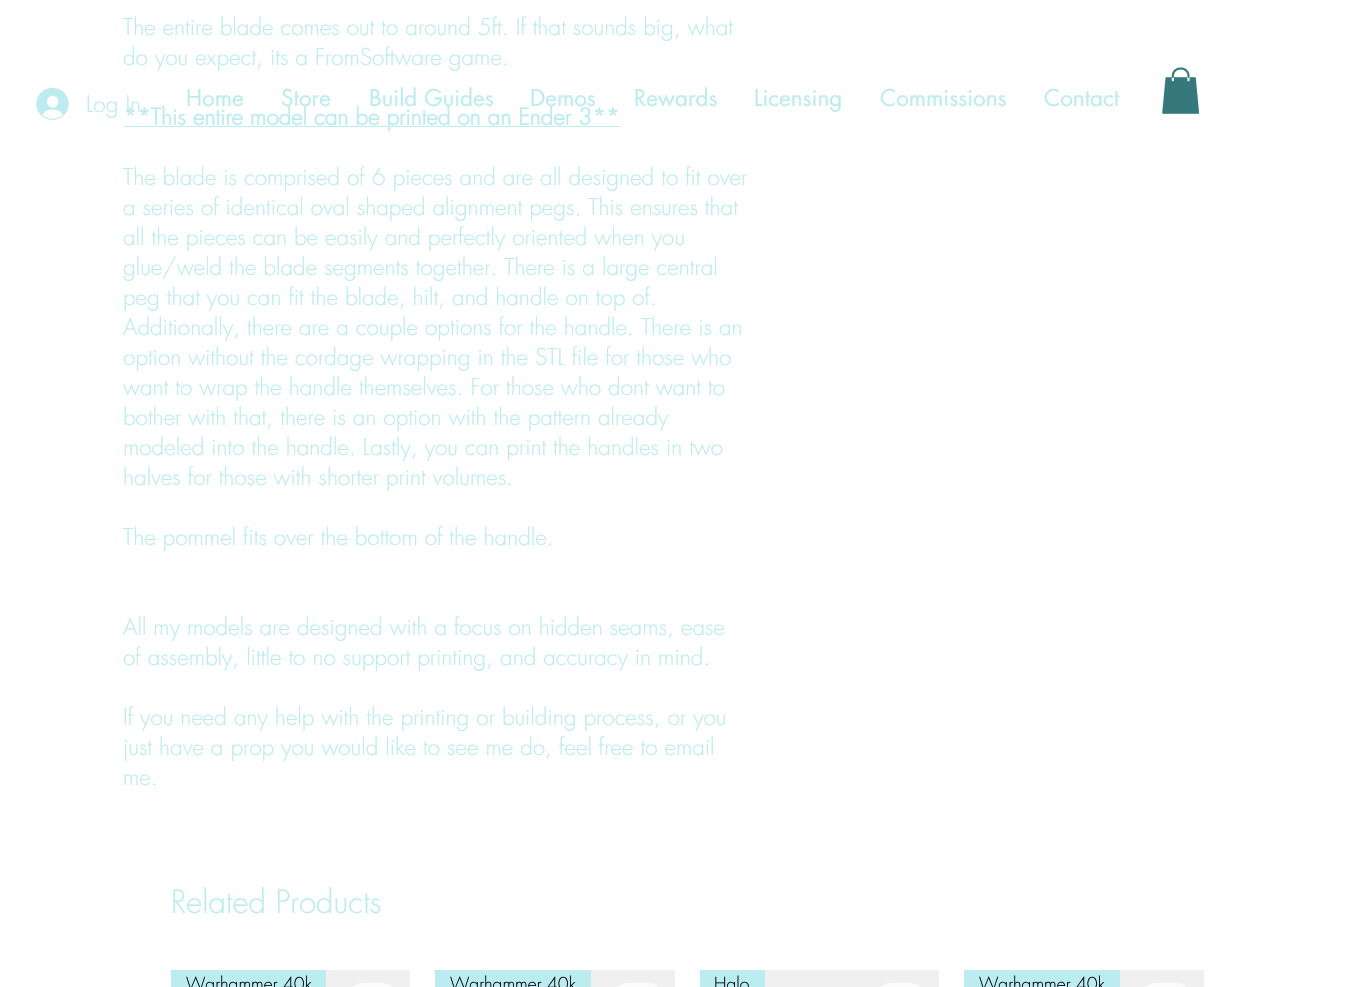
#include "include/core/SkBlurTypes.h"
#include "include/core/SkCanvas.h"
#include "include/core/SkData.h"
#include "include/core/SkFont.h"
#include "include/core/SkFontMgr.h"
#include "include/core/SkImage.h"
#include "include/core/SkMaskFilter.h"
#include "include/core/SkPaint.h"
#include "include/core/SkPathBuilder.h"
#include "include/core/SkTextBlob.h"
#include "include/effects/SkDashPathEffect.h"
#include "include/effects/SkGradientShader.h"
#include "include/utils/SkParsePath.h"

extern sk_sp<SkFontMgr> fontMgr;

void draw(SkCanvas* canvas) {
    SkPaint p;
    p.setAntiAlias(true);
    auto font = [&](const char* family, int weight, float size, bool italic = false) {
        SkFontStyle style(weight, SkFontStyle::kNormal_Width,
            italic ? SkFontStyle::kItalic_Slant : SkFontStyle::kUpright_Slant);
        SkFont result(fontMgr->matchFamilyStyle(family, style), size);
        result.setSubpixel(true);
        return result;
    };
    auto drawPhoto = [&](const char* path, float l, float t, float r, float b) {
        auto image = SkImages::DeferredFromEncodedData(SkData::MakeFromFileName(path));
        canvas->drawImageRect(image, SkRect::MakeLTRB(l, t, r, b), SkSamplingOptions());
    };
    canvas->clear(0xFFFFFFFF);
    auto font1 = font("futura", 300, 22.5f);
    p.setColor(0xFFBBEDF0);
    canvas->drawString("The entire blade comes out to around 5ft. If that sounds big, what", 123, 35, font1, p);
    canvas->drawString("do you expect, its a FromSoftware game.", 123, 65, font1, p);
    canvas->drawRect(SkRect::MakeLTRB(124, 126, 620, 127), p);
    auto font2 = font("futura", 700, 22.5f);
    canvas->drawString("**This entire model can be printed on an Ender 3**", 123, 125, font2, p);
    {
        const struct { const char* s; float x, y; } items[] = {
            {"The blade is comprised of 6 pieces and are all designed to fit over", 123, 185},
            {"a series of identical oval shaped alignment pegs. This ensures that", 123, 215},
            {"all the pieces can be easily and perfectly oriented when you", 123, 245},
            {"glue/weld the blade segments together. There is a large central", 123, 275},
            {"peg that you can fit the blade, hilt, and handle on top of.", 123, 305},
            {"Additionally, there are a couple options for the handle. There is an", 123, 335},
            {"option without the cordage wrapping in the STL file for those who", 123, 365},
            {"want to wrap the handle themselves. For those who dont want to", 123, 395},
            {"bother with that, there is an option with the pattern already", 123, 425},
            {"modeled into the handle. Lastly, you can print the handles in two", 123, 455},
            {"halves for those with shorter print volumes.", 123, 485},
            {"The pommel fits over the bottom of the handle.", 123, 545},
            {"All my models are designed with a focus on hidden seams, ease", 123, 635},
            {"of assembly, little to no support printing, and accuracy in mind.", 123, 665},
            {"If you need any help with the printing or building process, or you", 123, 725},
            {"just have a prop you would like to see me do, feel free to email", 123, 755},
            {"me.", 123, 785},
        };
        for (auto [s, x, y] : items) {
            canvas->drawString(s, x, y, font1, p);
        }
    }
    auto font3 = font("futura", 300, 31.25f);
    canvas->drawString("Related Products", 171, 913, font3, p);
    p.setColor(0xFFF0F0F0);
    canvas->drawRect(SkRect::MakeLTRB(326, 970, 410, 987), p);
    p.setColor(0xFFBBEDF0);
    canvas->drawRect(SkRect::MakeLTRB(171, 970, 326, 987), p);
    auto font4 = font("futura", 300, 17.5f);
    p.setColor(0xFF000000);
    canvas->drawString("Warhammer 40k", 186, 990, font4, p);
    p.setColor(0xFFFBFBFB);
    canvas->drawRoundRect(SkRect::MakeLTRB(348, 983, 398, 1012), 25, 25, p);
    p.setColor(0xFFF0F0F0);
    canvas->drawRect(SkRect::MakeLTRB(591, 970, 675, 987), p);
    p.setColor(0xFFBBEDF0);
    canvas->drawRect(SkRect::MakeLTRB(435, 970, 591, 987), p);
    p.setColor(0xFF000000);
    canvas->drawString("Warhammer 40k", 450, 990, font4, p);
    p.setColor(0xFFFBFBFB);
    canvas->drawRoundRect(SkRect::MakeLTRB(613, 983, 663, 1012), 25, 25, p);
    p.setColor(0xFFF0F0F0);
    canvas->drawRect(SkRect::MakeLTRB(765, 970, 939, 987), p);
    p.setColor(0xFFBBEDF0);
    canvas->drawRect(SkRect::MakeLTRB(700, 970, 765, 987), p);
    p.setColor(0xFF000000);
    canvas->drawString("Halo", 714, 990, font4, p);
    p.setColor(0xFFFBFBFB);
    canvas->drawRoundRect(SkRect::MakeLTRB(876, 983, 926, 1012), 25, 25, p);
    p.setColor(0xFFF0F0F0);
    canvas->drawRect(SkRect::MakeLTRB(1120, 970, 1204, 987), p);
    p.setColor(0xFFBBEDF0);
    canvas->drawRect(SkRect::MakeLTRB(964, 970, 1120, 987), p);
    p.setColor(0xFF000000);
    canvas->drawString("Warhammer 40k", 979, 990, font4, p);
    p.setColor(0xFFFBFBFB);
    canvas->drawRoundRect(SkRect::MakeLTRB(1141, 983, 1191, 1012), 25, 25, p);
    drawPhoto("media/1.png", 36, 88, 69, 120);
    p.setColor(0xFFBBEDF0);
    canvas->drawString("Log In", 86, 112, font1, p);
    auto font5 = font("futura", 400, 22.5f);
    {
        const struct { const char* s; float x, y; } items[] = {
            {"Home", 186, 106},
            {"Store", 281, 106},
            {"Build Guides", 369, 106},
            {"Demos", 530, 106},
            {"Rewards", 634, 106},
            {"Licensing", 754, 106},
            {"Commissions", 880, 106},
            {"Contact", 1044, 106},
        };
        for (auto [s, x, y] : items) {
            canvas->drawString(s, x, y, font5, p);
        }
    }
    drawPhoto("media/2.png", 1162, 67, 1200, 114);
}
